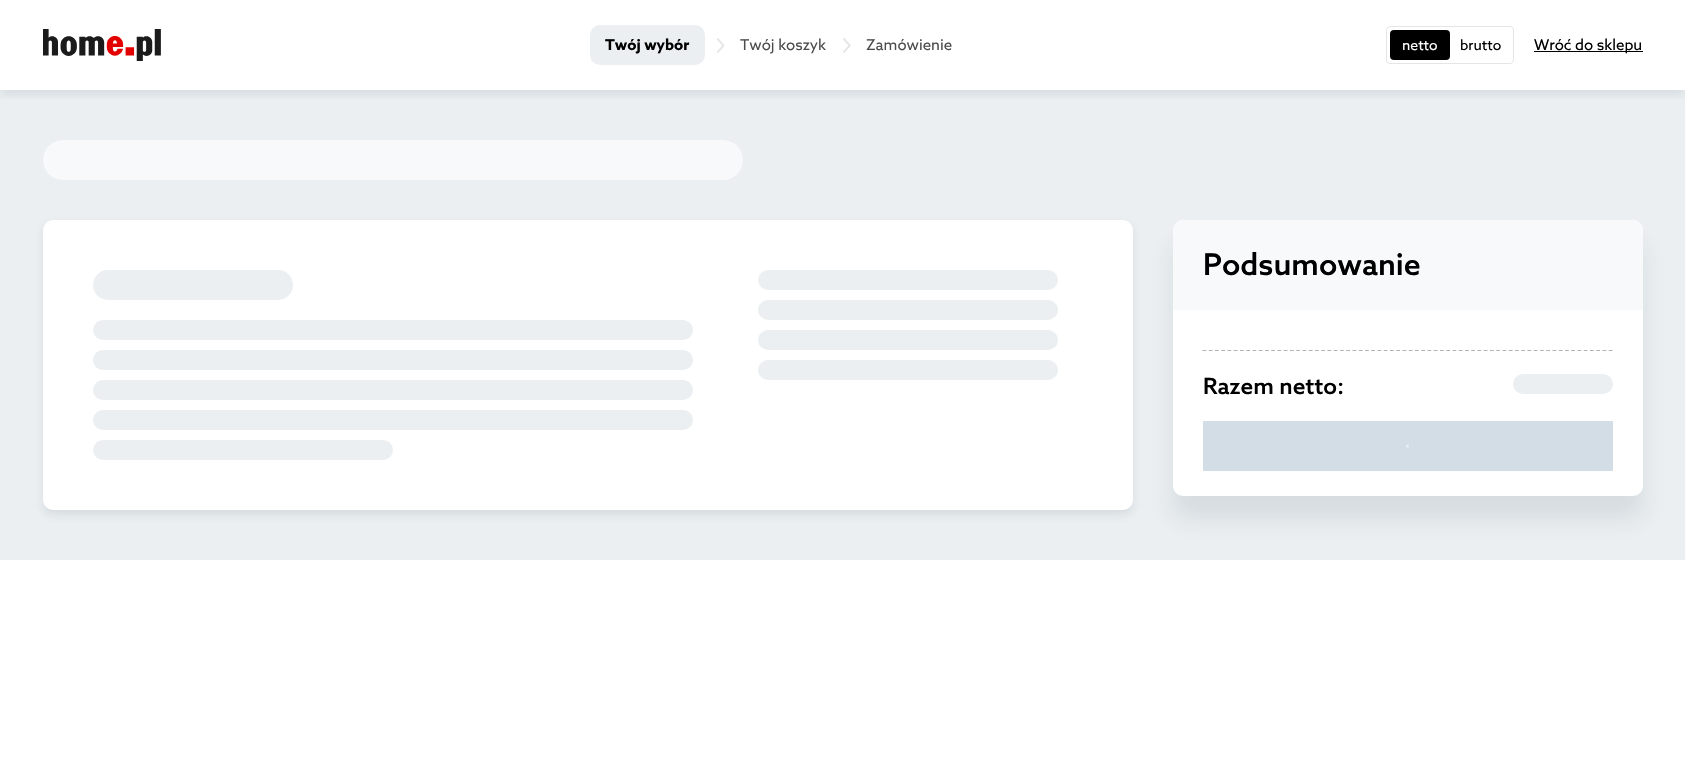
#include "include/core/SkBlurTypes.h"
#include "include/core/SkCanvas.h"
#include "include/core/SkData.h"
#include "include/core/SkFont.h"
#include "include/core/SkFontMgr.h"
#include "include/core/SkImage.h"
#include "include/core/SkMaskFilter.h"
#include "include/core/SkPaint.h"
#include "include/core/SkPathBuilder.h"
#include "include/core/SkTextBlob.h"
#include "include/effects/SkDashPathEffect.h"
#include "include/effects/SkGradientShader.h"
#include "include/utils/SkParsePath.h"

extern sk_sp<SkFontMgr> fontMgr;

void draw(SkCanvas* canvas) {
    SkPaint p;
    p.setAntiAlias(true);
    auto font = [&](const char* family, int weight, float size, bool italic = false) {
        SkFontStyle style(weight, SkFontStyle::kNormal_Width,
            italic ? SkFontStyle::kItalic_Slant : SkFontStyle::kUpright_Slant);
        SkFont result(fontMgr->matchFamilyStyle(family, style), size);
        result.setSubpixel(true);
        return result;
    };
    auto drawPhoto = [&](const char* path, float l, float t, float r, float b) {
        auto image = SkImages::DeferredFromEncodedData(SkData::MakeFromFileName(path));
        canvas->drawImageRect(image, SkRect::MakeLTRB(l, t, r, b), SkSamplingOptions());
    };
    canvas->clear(0xFFFFFFFF);
    p.setColor(0xFFEBEFF1);
    canvas->drawRect(SkRect::MakeLTRB(0, 90, 1685, 560), p);
    canvas->save();
    canvas->clipRect(SkRect::MakeLTRB(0, 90, 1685, 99));
    p.setColor(0x1A193052);
    p.setMaskFilter(SkMaskFilter::MakeBlur(kNormal_SkBlurStyle, 5));
    canvas->drawRect(SkRect::MakeLTRB(0, 5, 1685, 95), p);
    p.setMaskFilter(nullptr);
    canvas->restore();
    drawPhoto("media/1.png", 43, 29, 161, 61);
    p.setColor(0xFFEBEFF1);
    canvas->drawRoundRect(SkRect::MakeLTRB(590, 25, 705, 65), 10, 10, p);
    auto font1 = font("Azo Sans", 700, 15);
    p.setColor(0xFF000000);
    canvas->drawString("Twój wybór", 605, 50, font1, p);
    drawPhoto("media/2.png", 717, 38, 725, 53);
    auto font2 = font("Azo Sans", 400, 15);
    p.setColor(0xFF4C4C4C);
    canvas->drawString("Twój koszyk", 740, 50, font2, p);
    drawPhoto("media/3.png", 843, 38, 851, 53);
    canvas->drawString("Zamówienie", 866, 50, font2, p);
    p.setStyle(SkPaint::kStroke_Style);
    p.setStrokeWidth(1);
    p.setColor(0xFFE5E5E5);
    canvas->drawRoundRect(SkRect::MakeLTRB(1386.5f, 26.5f, 1513.5f, 63.5f), 3.5f, 3.5f, p);
    p.setStyle(SkPaint::kFill_Style);
    p.setColor(0xFF000000);
    canvas->drawRoundRect(SkRect::MakeLTRB(1390, 30, 1450, 60), 4, 4, p);
    auto font3 = font("Azo Sans", 400, 14);
    canvas->drawString("brutto", 1460, 50, font3, p);
    p.setColor(0xFFFFFFFF);
    canvas->drawString("netto", 1402, 50, font3, p);
    p.setColor(0xFF000000);
    canvas->drawRect(SkRect::MakeLTRB(1534, 51, 1643, 52), p);
    canvas->drawString("Wróć do sklepu", 1534, 50, font2, p);
    p.setColor(0xFFF7F9FB);
    canvas->drawRoundRect(SkRect::MakeLTRB(43, 140, 743, 180), 20, 20, p);
    p.setColor(0x1A193052);
    p.setMaskFilter(SkMaskFilter::MakeBlur(kNormal_SkBlurStyle, 5));
    canvas->drawRoundRect(SkRect::MakeLTRB(43, 225, 1133, 515), 10, 10, p);
    p.setMaskFilter(nullptr);
    p.setColor(0xFFFFFFFF);
    canvas->drawRoundRect(SkRect::MakeLTRB(43, 220, 1133, 510), 10, 10, p);
    p.setColor(0xFFEBEFF1);
    canvas->drawRoundRect(SkRect::MakeLTRB(93, 270, 293, 300), 15, 15, p);
    canvas->drawRoundRect(SkRect::MakeLTRB(93, 320, 693, 340), 10, 10, p);
    canvas->drawRoundRect(SkRect::MakeLTRB(93, 350, 693, 370), 10, 10, p);
    canvas->drawRoundRect(SkRect::MakeLTRB(93, 380, 693, 400), 10, 10, p);
    canvas->drawRoundRect(SkRect::MakeLTRB(93, 410, 693, 430), 10, 10, p);
    canvas->drawRoundRect(SkRect::MakeLTRB(93, 440, 393, 460), 10, 10, p);
    canvas->drawRoundRect(SkRect::MakeLTRB(758, 270, 1058, 290), 10, 10, p);
    canvas->drawRoundRect(SkRect::MakeLTRB(758, 300, 1058, 320), 10, 10, p);
    canvas->drawRoundRect(SkRect::MakeLTRB(758, 330, 1058, 350), 10, 10, p);
    canvas->drawRoundRect(SkRect::MakeLTRB(758, 360, 1058, 380), 10, 10, p);
    p.setColor(0x1A193052);
    p.setMaskFilter(SkMaskFilter::MakeBlur(kNormal_SkBlurStyle, 12.5f));
    canvas->drawRoundRect(SkRect::MakeLTRB(1173, 243, 1643, 519), 10, 10, p);
    p.setMaskFilter(nullptr);
    p.setColor(0xFFFFFFFF);
    canvas->drawRoundRect(SkRect::MakeLTRB(1173, 220, 1643, 496), 10, 10, p);
    p.setColor(0xFFF7F9FB);
    canvas->drawPath(SkPathBuilder().moveTo(1183, 220).lineTo(1633, 220).cubicTo(1638.5f, 220, 1643, 224.5f, 1643, 230).lineTo(1643, 310).lineTo(1173, 310).lineTo(1173, 230).cubicTo(1173, 224.5f, 1177.5f, 220, 1183, 220).close().detach(), p);
    auto font4 = font("Azo Sans", 500, 30);
    p.setColor(0xFF000000);
    canvas->drawString("Podsumowanie", 1203, 275, font4, p);
    p.setStyle(SkPaint::kStroke_Style);
    p.setStrokeWidth(1.2f);
    p.setColor(0xFFB2B2B2);
    p.setPathEffect(SkDashPathEffect::Make({{3.75f, 2.5f}}, 0));
    canvas->drawPath(SkPathBuilder().moveTo(1202.5f, 350.5f).lineTo(1612.5f, 350.5f).detach(), p);
    p.setPathEffect(nullptr);
    auto font5 = font("Azo Sans", 500, 22.5f);
    p.setStyle(SkPaint::kFill_Style);
    p.setColor(0xFF000000);
    canvas->drawString("Razem netto:", 1203, 394, font5, p);
    p.setColor(0xFFEBEFF1);
    canvas->drawRoundRect(SkRect::MakeLTRB(1513, 374, 1613, 394), 10, 10, p);
    p.setColor(0xFFD2DDE5);
    canvas->drawRect(SkRect::MakeLTRB(1203, 421, 1613, 471), p);
    p.setStyle(SkPaint::kStroke_Style);
    p.setStrokeWidth(1.6f);
    p.setColor(0xFFE7EDF1);
    canvas->drawCircle(1407.5f, 446.2f, 0.8f, p);
}
